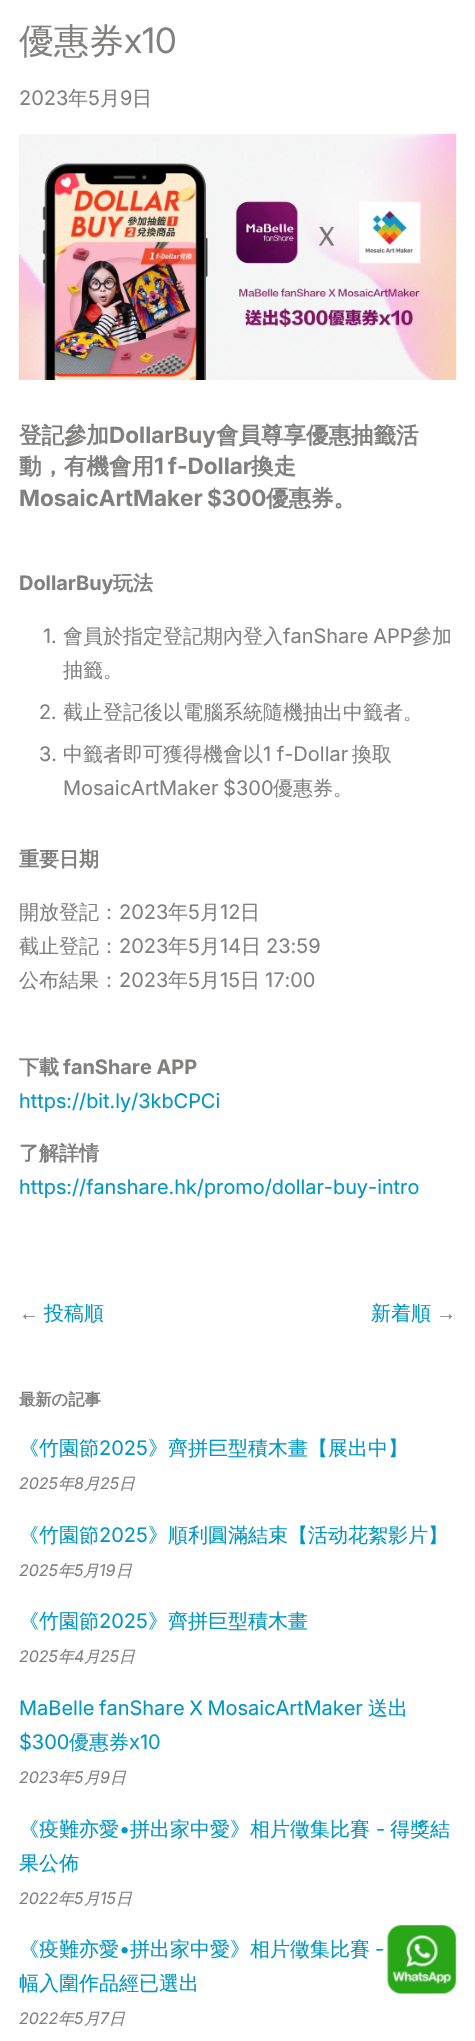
#include "include/core/SkBlurTypes.h"
#include "include/core/SkCanvas.h"
#include "include/core/SkData.h"
#include "include/core/SkFont.h"
#include "include/core/SkFontMgr.h"
#include "include/core/SkImage.h"
#include "include/core/SkMaskFilter.h"
#include "include/core/SkPaint.h"
#include "include/core/SkPathBuilder.h"
#include "include/core/SkTextBlob.h"
#include "include/effects/SkDashPathEffect.h"
#include "include/effects/SkGradientShader.h"
#include "include/utils/SkParsePath.h"

extern sk_sp<SkFontMgr> fontMgr;

void draw(SkCanvas* canvas) {
    SkPaint p;
    p.setAntiAlias(true);
    auto font = [&](const char* family, int weight, float size, bool italic = false) {
        SkFontStyle style(weight, SkFontStyle::kNormal_Width,
            italic ? SkFontStyle::kItalic_Slant : SkFontStyle::kUpright_Slant);
        SkFont result(fontMgr->matchFamilyStyle(family, style), size);
        result.setSubpixel(true);
        return result;
    };
    auto drawTracked = [&](const char* s, float x, float y, const SkFont& font, const SkPaint& ink, float letter, float word) {
        std::vector<SkGlyphID> glyphs(font.countText(s, strlen(s), SkTextEncoding::kUTF8));
        std::vector<float> xs(glyphs.size());
        font.textToGlyphs(s, strlen(s), SkTextEncoding::kUTF8, glyphs);
        font.getXPos(glyphs, xs, x);
        float extra = 0;
        for (size_t i = 0; i < glyphs.size(); i++) {
            xs[i] += extra;
            extra += letter + word * (glyphs[i] == font.unicharToGlyph(' '));
        }
        canvas->drawTextBlob(SkTextBlob::MakeFromPosHGlyphs(glyphs, xs, y, font), 0, 0, ink);
    };
    auto drawPhoto = [&](const char* path, float l, float t, float r, float b) {
        auto image = SkImages::DeferredFromEncodedData(SkData::MakeFromFileName(path));
        canvas->drawImageRect(image, SkRect::MakeLTRB(l, t, r, b), SkSamplingOptions());
    };
    canvas->clear(0xFFFFFFFF);
    auto font1 = font("WenQuanYi Zen Hei", 500, 35);
    p.setColor(0xFF81807F);
    canvas->drawString("優惠券", 19, 53, font1, p);
    auto font2 = font("Inter", 400, 35);
    canvas->drawString("x10", 124, 53, font2, p);
    auto font3 = font("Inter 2", 400, 20);
    canvas->drawString("2023", 19, 105, font3, p);
    auto font4 = font("WenQuanYi Zen Hei", 500, 20);
    canvas->drawString("年", 68, 105, font4, p);
    canvas->drawString("5", 88, 105, font3, p);
    canvas->drawString("月", 100, 105, font4, p);
    canvas->drawString("9", 120, 105, font3, p);
    canvas->drawString("日", 132, 105, font4, p);
    drawPhoto("media/1.png", 18, 133, 457, 380);
    auto font5 = font("WenQuanYi Zen Hei", 700, 22.5f);
    canvas->drawString("登記參加", 19, 443, font5, p);
    auto font6 = font("Inter", 700, 22.5f);
    canvas->drawString("DollarBuy", 109, 443, font6, p);
    canvas->drawString("會員尊享優惠抽籤活", 216, 443, font5, p);
    canvas->drawString("動，有機會用", 19, 474, font5, p);
    drawTracked("1 f-Dollar", 154, 474, font6, p, 0, -1);
    canvas->drawString("換走", 251, 474, font5, p);
    drawTracked("MosaicArtMaker $300", 19, 506, font6, p, 0, -1);
    canvas->drawString("優惠券。", 266, 506, font5, p);
    auto font7 = font("Inter 2", 700, 20);
    canvas->drawString("DollarBuy", 19, 590, font7, p);
    auto font8 = font("WenQuanYi Zen Hei", 700, 20);
    canvas->drawString("玩法", 113, 590, font8, p);
    auto font9 = font("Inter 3", 400, 20);
    canvas->drawString("1.", 43, 643, font9, p);
    canvas->drawString("會員於指定登記期內登入", 63, 643, font4, p);
    drawTracked("fanShare APP", 283, 643, font3, p, 0, -1);
    canvas->drawString("參加", 412, 643, font4, p);
    canvas->drawString("抽籤。", 63, 677, font4, p);
    canvas->drawString("2.", 39, 719, font9, p);
    canvas->drawString("截止登記後以電腦系統隨機抽出中籤者。", 63, 719, font4, p);
    canvas->drawString("3.", 39, 761, font9, p);
    canvas->drawString("中籤者即可獲得機會以", 63, 761, font4, p);
    canvas->drawString("1 f-Dollar", 263, 761, font3, p);
    canvas->drawString("換取", 352, 761, font4, p);
    drawTracked("MosaicArtMaker $300", 63, 795, font3, p, 0, -1);
    canvas->drawString("優惠券。", 273, 795, font4, p);
    canvas->drawString("重要日期", 19, 866, font8, p);
    canvas->drawString("開放登記：", 19, 919, font4, p);
    canvas->drawString("2023", 119, 919, font3, p);
    canvas->drawString("年", 168, 919, font4, p);
    canvas->drawString("5", 188, 919, font3, p);
    canvas->drawString("月", 200, 919, font4, p);
    canvas->drawString("12", 220, 919, font3, p);
    canvas->drawString("日", 240, 919, font4, p);
    canvas->drawString("截止登記：", 19, 953, font4, p);
    canvas->drawString("2023", 119, 953, font3, p);
    canvas->drawString("年", 168, 953, font4, p);
    canvas->drawString("5", 188, 953, font3, p);
    canvas->drawString("月", 200, 953, font4, p);
    canvas->drawString("14", 220, 953, font3, p);
    canvas->drawString("日", 241, 953, font4, p);
    canvas->drawString("23:59", 266, 953, font3, p);
    canvas->drawString("公布結果：", 19, 987, font4, p);
    canvas->drawString("2023", 119, 987, font3, p);
    canvas->drawString("年", 168, 987, font4, p);
    canvas->drawString("5", 188, 987, font3, p);
    canvas->drawString("月", 200, 987, font4, p);
    canvas->drawString("15", 220, 987, font3, p);
    canvas->drawString("日", 240, 987, font4, p);
    canvas->drawString("17:00", 265, 987, font3, p);
    canvas->drawString("下載", 19, 1074, font8, p);
    canvas->drawString("fanShare APP", 63, 1074, font7, p);
    p.setColor(0xFF0097C5);
    canvas->drawString("https://bit.ly/3kbCPCi", 19, 1108, font9, p);
    p.setColor(0xFF81807F);
    canvas->drawString("了解詳情", 19, 1160, font8, p);
    p.setColor(0xFF0097C5);
    canvas->drawString("https://fanshare.hk/promo/dollar-buy-intro", 19, 1194, font9, p);
    auto font10 = font("Liberation Sans", 400, 20);
    p.setColor(0xFF81807F);
    canvas->drawString("←", 19, 1320, font10, p);
    p.setColor(0xFF0097C5);
    canvas->drawString("投稿順", 44, 1320, font4, p);
    canvas->drawString("新着順", 371, 1320, font4, p);
    p.setColor(0xFF81807F);
    canvas->drawString("→", 436, 1320, font10, p);
    auto font11 = font("WenQuanYi Zen Hei", 700, 16.25f);
    canvas->drawString("最新の記事", 19, 1405, font11, p);
    p.setColor(0xFF0097C5);
    canvas->drawString("《竹園節", 19, 1455, font4, p);
    canvas->drawString("2025", 99, 1455, font3, p);
    canvas->drawString("》齊拼巨型積木畫【展出中】", 148, 1455, font4, p);
    auto font12 = font("Inter", 400, 16, true);
    p.setColor(0xFF81807F);
    canvas->drawString("2025", 19, 1489, font12, p);
    auto font13 = font("WenQuanYi Zen Hei", 500, 16, true);
    canvas->drawString("年", 58, 1489, font13, p);
    canvas->drawString("8", 74, 1489, font12, p);
    canvas->drawString("月", 84, 1489, font13, p);
    canvas->drawString("25", 100, 1489, font12, p);
    canvas->drawString("日", 119, 1489, font13, p);
    p.setColor(0xFF0097C5);
    canvas->drawString("《竹園節", 19, 1542, font4, p);
    canvas->drawString("2025", 99, 1542, font3, p);
    canvas->drawString("》順利圓滿結束【活动花絮影片】", 148, 1542, font4, p);
    p.setColor(0xFF81807F);
    canvas->drawString("2025", 19, 1576, font12, p);
    canvas->drawString("年", 58, 1576, font13, p);
    canvas->drawString("5", 74, 1576, font12, p);
    canvas->drawString("月", 83, 1576, font13, p);
    canvas->drawString("19", 99, 1576, font12, p);
    canvas->drawString("日", 116, 1576, font13, p);
    p.setColor(0xFF0097C5);
    canvas->drawString("《竹園節", 19, 1628, font4, p);
    canvas->drawString("2025", 99, 1628, font3, p);
    canvas->drawString("》齊拼巨型積木畫", 148, 1628, font4, p);
    p.setColor(0xFF81807F);
    canvas->drawString("2025", 19, 1662, font12, p);
    canvas->drawString("年", 58, 1662, font13, p);
    canvas->drawString("4", 74, 1662, font12, p);
    canvas->drawString("月", 84, 1662, font13, p);
    canvas->drawString("25", 100, 1662, font12, p);
    canvas->drawString("日", 119, 1662, font13, p);
    p.setColor(0xFF0097C5);
    drawTracked("MaBelle fanShare X MosaicArtMaker", 19, 1715, font3, p, 0, -1);
    canvas->drawString("送出", 368, 1715, font4, p);
    canvas->drawString("$300", 19, 1749, font3, p);
    canvas->drawString("優惠券", 69, 1749, font4, p);
    canvas->drawString("x10", 129, 1749, font3, p);
    p.setColor(0xFF81807F);
    canvas->drawString("2023", 19, 1783, font12, p);
    canvas->drawString("年", 58, 1783, font13, p);
    canvas->drawString("5", 74, 1783, font12, p);
    canvas->drawString("月", 84, 1783, font13, p);
    canvas->drawString("9", 100, 1783, font12, p);
    canvas->drawString("日", 110, 1783, font13, p);
    p.setColor(0xFF0097C5);
    canvas->drawString("《疫難亦愛", 19, 1836, font4, p);
    canvas->drawString("•", 119, 1836, font3, p);
    canvas->drawString("拼出家中愛》相片徵集比賽", 130, 1836, font4, p);
    canvas->drawString("-", 376, 1836, font3, p);
    canvas->drawString("得獎結", 390, 1836, font4, p);
    canvas->drawString("果公佈", 19, 1870, font4, p);
    p.setColor(0xFF81807F);
    canvas->drawString("2022", 19, 1904, font12, p);
    canvas->drawString("年", 58, 1904, font13, p);
    canvas->drawString("5", 74, 1904, font12, p);
    canvas->drawString("月", 84, 1904, font13, p);
    canvas->drawString("15", 100, 1904, font12, p);
    canvas->drawString("日", 116, 1904, font13, p);
    p.setColor(0xFF0097C5);
    canvas->drawString("《疫難亦愛", 19, 1956, font4, p);
    canvas->drawString("•", 119, 1956, font3, p);
    canvas->drawString("拼出家中愛》相片徵集比賽", 130, 1956, font4, p);
    canvas->drawString("-", 375, 1956, font3, p);
    canvas->drawString("幅入圍作品經已選出", 19, 1990, font4, p);
    p.setColor(0xFF81807F);
    canvas->drawString("2022", 19, 2024, font12, p);
    canvas->drawString("年", 58, 2024, font13, p);
    canvas->drawString("5", 74, 2024, font12, p);
    canvas->drawString("月", 84, 2024, font13, p);
    canvas->drawString("7", 100, 2024, font12, p);
    canvas->drawString("日", 109, 2024, font13, p);
    drawPhoto("media/2.png", 387, 1925, 457, 1994);
}
